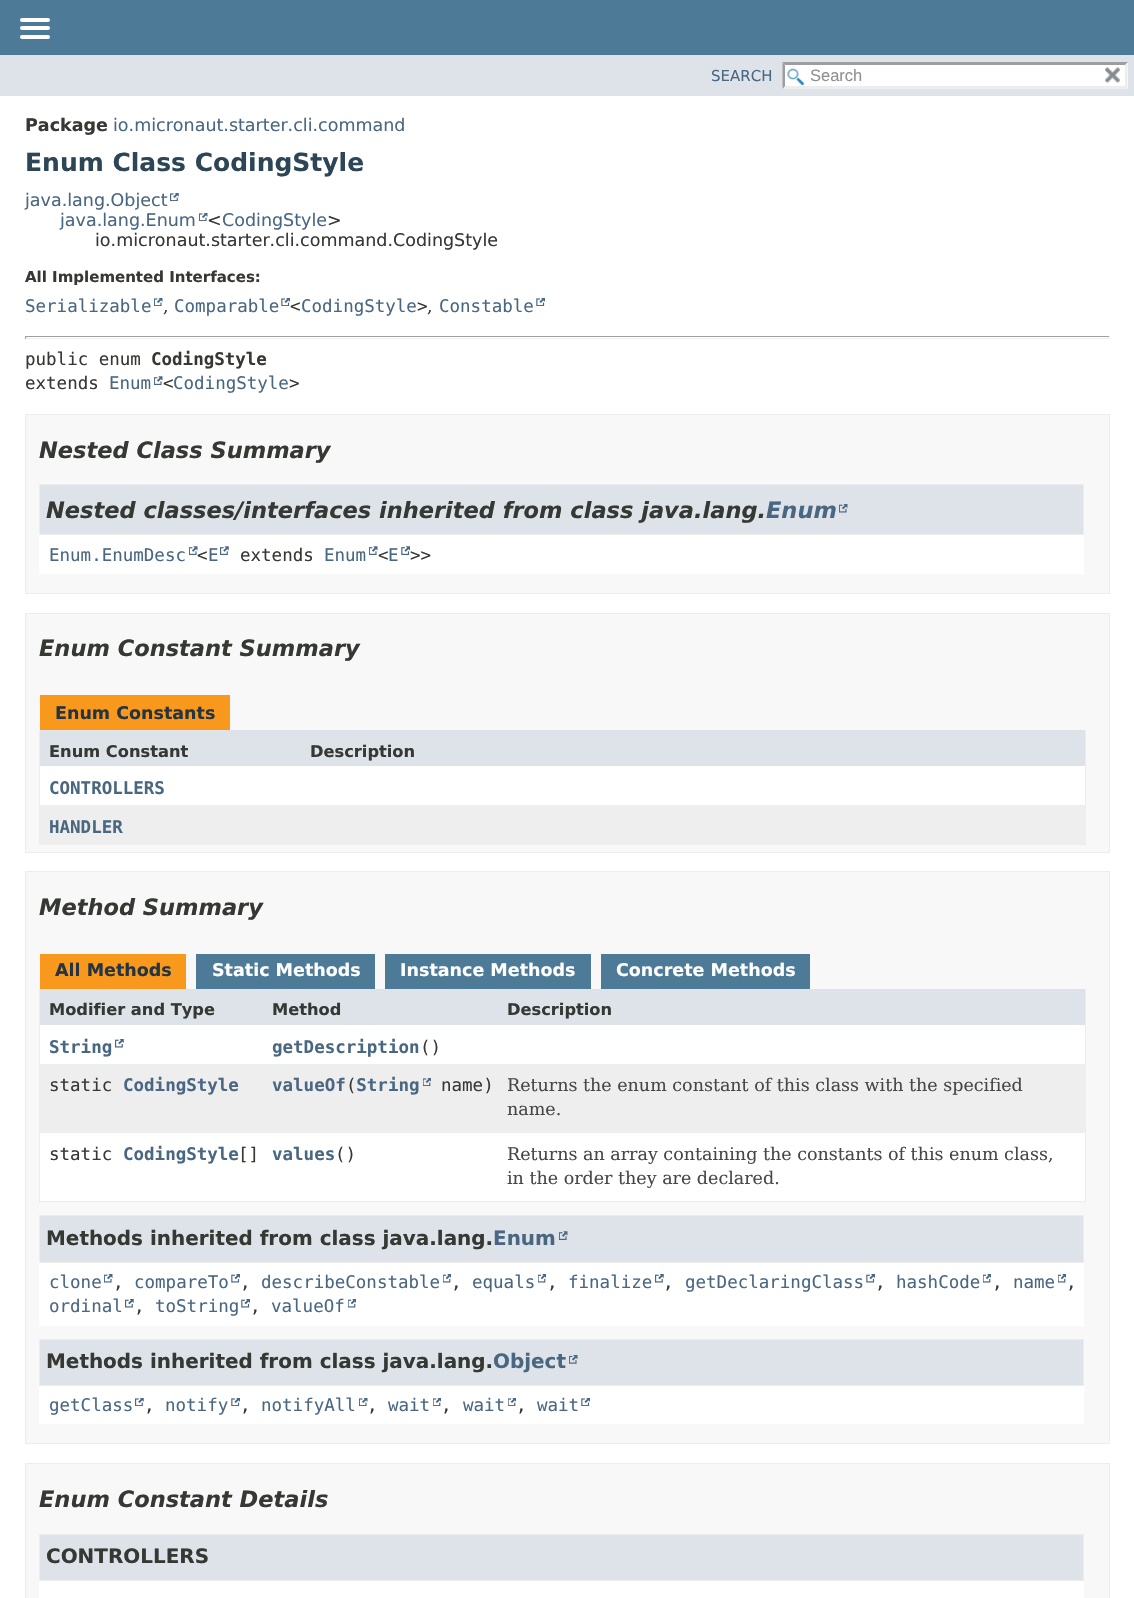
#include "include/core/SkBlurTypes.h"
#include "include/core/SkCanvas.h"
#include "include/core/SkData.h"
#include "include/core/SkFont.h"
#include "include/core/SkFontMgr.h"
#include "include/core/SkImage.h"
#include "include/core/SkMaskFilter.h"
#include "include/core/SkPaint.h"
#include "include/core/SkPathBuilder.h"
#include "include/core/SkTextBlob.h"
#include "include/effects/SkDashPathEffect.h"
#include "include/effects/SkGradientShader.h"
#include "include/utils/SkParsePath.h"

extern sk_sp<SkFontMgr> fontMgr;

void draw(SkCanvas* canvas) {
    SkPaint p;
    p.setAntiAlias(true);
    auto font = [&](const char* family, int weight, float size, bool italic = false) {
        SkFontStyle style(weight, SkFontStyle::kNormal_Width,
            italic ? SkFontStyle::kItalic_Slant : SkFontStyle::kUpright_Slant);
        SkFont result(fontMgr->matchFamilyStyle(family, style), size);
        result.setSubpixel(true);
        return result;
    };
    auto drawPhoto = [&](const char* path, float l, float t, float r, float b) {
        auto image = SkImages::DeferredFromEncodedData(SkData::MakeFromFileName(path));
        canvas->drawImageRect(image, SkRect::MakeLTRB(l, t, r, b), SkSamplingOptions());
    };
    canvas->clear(0xFFFFFFFF);
    p.setColor(0xFF4D7A97);
    canvas->drawRect(SkRect::MakeLTRB(0, 0, 1134, 55), p);
    p.setColor(0xFFFFFFFF);
    canvas->drawRoundRect(SkRect::MakeLTRB(20, 18, 50, 22), 2, 2, p);
    canvas->drawRoundRect(SkRect::MakeLTRB(20, 26, 50, 30), 2, 2, p);
    canvas->drawRoundRect(SkRect::MakeLTRB(20, 35, 50, 39), 2, 2, p);
    p.setColor(0xFFDEE3E9);
    canvas->drawRect(SkRect::MakeLTRB(0, 55, 1134, 96), p);
    auto font1 = font("DejaVu Sans", 400, 15);
    p.setColor(0xFF4A6782);
    canvas->drawString("SEARCH", 711, 81, font1, p);
    p.setColor(0xFFFFFFFF);
    canvas->drawRect(SkRect::MakeLTRB(783, 63, 1128, 89), p);
    drawPhoto("media/1.png", 787, 68, 804, 85);
    p.setColor(0xFF9E9E9E);
    canvas->drawPath(SkPathBuilder().moveTo(782, 62).lineTo(1128, 62).lineTo(1125, 65).lineTo(785, 65).close().detach(), p);
    p.setColor(0xFFEDEDED);
    canvas->drawPath(SkPathBuilder().moveTo(1127.5f, 62.5f).lineTo(1127.5f, 89).lineTo(1125, 86).lineTo(1125, 65).close().detach(), p);
    canvas->drawPath(SkPathBuilder().moveTo(1128, 89).lineTo(782, 89).lineTo(785, 86).lineTo(1125, 86).close().detach(), p);
    p.setColor(0xFF9E9E9E);
    canvas->drawPath(SkPathBuilder().moveTo(782.5f, 89).lineTo(782.5f, 62.5f).lineTo(785, 65).lineTo(785, 86).close().detach(), p);
    auto font2 = font("Liberation Sans", 400, 16.5f);
    p.setColor(0xFF909090);
    canvas->drawString("Search", 810, 81, font2, p);
    drawPhoto("media/2.png", 1105, 67, 1120, 83);
    auto font3 = font("DejaVu Sans", 700, 17.5f);
    p.setColor(0xFF353833);
    canvas->drawString("Package", 25, 131, font3, p);
    auto font4 = font("DejaVu Sans", 400, 17.5f);
    p.setColor(0xFF4A6782);
    canvas->drawString("io.micronaut.starter.cli.command", 113, 131, font4, p);
    auto font5 = font("DejaVu Sans", 700, 25);
    p.setColor(0xFF2C4557);
    canvas->drawString("Enum Class CodingStyle", 25, 171, font5, p);
    p.setColor(0xFF4A6782);
    canvas->drawString("java.lang.Object", 25, 206, font4, p);
    drawPhoto("media/3.png", 170, 193, 179, 201);
    canvas->drawString("java.lang.Enum", 60, 226, font4, p);
    drawPhoto("media/4.png", 199, 213, 208, 221);
    p.setColor(0xFF353833);
    canvas->drawString("<", 207, 226, font4, p);
    p.setColor(0xFF4A6782);
    canvas->drawString("CodingStyle", 222, 226, font4, p);
    p.setColor(0xFF353833);
    canvas->drawString(">", 327, 226, font4, p);
    canvas->drawString("io.micronaut.starter.cli.command.CodingStyle", 95, 246, font4, p);
    auto font6 = font("DejaVu Sans", 700, 15);
    canvas->drawString("All Implemented Interfaces:", 25, 282, font6, p);
    auto font7 = font("DejaVu Sans Mono", 400, 17.5f);
    p.setColor(0xFF4A6782);
    canvas->drawString("Serializable", 25, 312, font7, p);
    drawPhoto("media/4.png", 154, 298, 163, 306);
    auto font8 = font("DejaVu Serif", 400, 17.5f);
    p.setColor(0xFF353833);
    canvas->drawString(",", 163, 312, font8, p);
    p.setColor(0xFF4A6782);
    canvas->drawString("Comparable", 174, 312, font7, p);
    drawPhoto("media/5.png", 281, 298, 290, 306);
    p.setColor(0xFF353833);
    canvas->drawString("<", 290, 312, font7, p);
    p.setColor(0xFF4A6782);
    canvas->drawString("CodingStyle", 301, 312, font7, p);
    p.setColor(0xFF353833);
    canvas->drawString(">", 417, 312, font7, p);
    canvas->drawString(",", 427, 312, font8, p);
    p.setColor(0xFF4A6782);
    canvas->drawString("Constable", 439, 312, font7, p);
    drawPhoto("media/5.png", 536, 298, 545, 306);
    {
        const struct { float l, t, r, b; SkColor color; } items[] = {
            {25, 336, 1110, 337, 0xFF9F9F9F},
            {1109, 336, 1110, 339, 0xFFEEEEEE},
            {25, 338, 1110, 339, 0xFFEEEEEE},
            {25, 336, 26, 339, 0xFF9F9F9F},
        };
        for (auto [l, t, r, b, color] : items) {
            p.setColor(color);
            canvas->drawRect(SkRect::MakeLTRB(l, t, r, b), p);
        }
    }
    p.setColor(0xFF353833);
    canvas->drawString("public enum", 25, 365, font7, p);
    auto font9 = font("DejaVu Sans Mono", 700, 17.5f);
    canvas->drawString("CodingStyle", 151, 365, font9, p);
    canvas->drawString("extends", 25, 389, font7, p);
    p.setColor(0xFF4A6782);
    canvas->drawString("Enum", 109, 389, font7, p);
    drawPhoto("media/6.png", 154, 376, 163, 385);
    p.setColor(0xFF353833);
    canvas->drawString("<", 163, 389, font7, p);
    p.setColor(0xFF4A6782);
    canvas->drawString("CodingStyle", 173, 389, font7, p);
    p.setColor(0xFF353833);
    canvas->drawString(">", 289, 389, font7, p);
    p.setColor(0xFFF8F8F8);
    canvas->drawRect(SkRect::MakeLTRB(25.5f, 414.5f, 1109.5f, 593.5f), p);
    p.setStyle(SkPaint::kStroke_Style);
    p.setStrokeWidth(1);
    p.setColor(0xFFEDEDED);
    canvas->drawRect(SkRect::MakeLTRB(25.5f, 414.5f, 1109.5f, 593.5f), p);
    auto font10 = font("DejaVu Sans", 700, 22.5f, true);
    p.setStyle(SkPaint::kFill_Style);
    p.setColor(0xFF353833);
    canvas->drawString("Nested Class Summary", 39, 458, font10, p);
    p.setColor(0xFFFFFFFF);
    canvas->drawRect(SkRect::MakeLTRB(39, 535, 1084, 574), p);
    p.setColor(0xFFDEE3E9);
    canvas->drawRect(SkRect::MakeLTRB(39.5f, 484.5f, 1083.5f, 534.5f), p);
    p.setStyle(SkPaint::kStroke_Style);
    p.setColor(0xFFEDEDED);
    canvas->drawRect(SkRect::MakeLTRB(39.5f, 484.5f, 1083.5f, 534.5f), p);
    p.setStyle(SkPaint::kFill_Style);
    p.setColor(0xFF353833);
    canvas->drawString("Nested classes/interfaces inherited from class java.lang.", 46, 518, font10, p);
    p.setColor(0xFF4A6782);
    canvas->drawString("Enum", 766, 518, font10, p);
    drawPhoto("media/7.png", 839, 504, 848, 513);
    canvas->drawString("Enum.EnumDesc", 49, 561, font7, p);
    drawPhoto("media/6.png", 189, 546, 198, 555);
    p.setColor(0xFF353833);
    canvas->drawString("<", 197, 561, font7, p);
    p.setColor(0xFF4A6782);
    canvas->drawString("E", 208, 561, font7, p);
    drawPhoto("media/8.png", 220, 546, 229, 555);
    p.setColor(0xFF353833);
    canvas->drawString("extends", 240, 561, font7, p);
    p.setColor(0xFF4A6782);
    canvas->drawString("Enum", 324, 561, font7, p);
    drawPhoto("media/6.png", 369, 546, 378, 555);
    p.setColor(0xFF353833);
    canvas->drawString("<", 378, 561, font7, p);
    p.setColor(0xFF4A6782);
    canvas->drawString("E", 388, 561, font7, p);
    drawPhoto("media/9.png", 401, 546, 410, 555);
    p.setColor(0xFF353833);
    canvas->drawString(">>", 410, 561, font7, p);
    p.setColor(0xFFF8F8F8);
    canvas->drawRect(SkRect::MakeLTRB(25.5f, 613.5f, 1109.5f, 852.5f), p);
    p.setStyle(SkPaint::kStroke_Style);
    p.setColor(0xFFEDEDED);
    canvas->drawRect(SkRect::MakeLTRB(25.5f, 613.5f, 1109.5f, 852.5f), p);
    p.setStyle(SkPaint::kFill_Style);
    p.setColor(0xFF353833);
    canvas->drawString("Enum Constant Summary", 39, 656, font10, p);
    p.setColor(0xFFF8981D);
    canvas->drawRect(SkRect::MakeLTRB(40, 695, 230, 730), p);
    p.setColor(0xFF253441);
    canvas->drawString("Enum Constants", 55, 719, font3, p);
    {
        const struct { float l, t, r, b; SkColor color; } items[] = {
            {1085, 730, 1086, 845, 0xFFEDEDED},
            {39, 844, 1086, 845, 0xFFEDEDED},
            {39, 730, 40, 845, 0xFFEDEDED},
            {40, 730, 1085, 766, 0xFFDEE3E9},
        };
        for (auto [l, t, r, b, color] : items) {
            p.setColor(color);
            canvas->drawRect(SkRect::MakeLTRB(l, t, r, b), p);
        }
    }
    auto font11 = font("DejaVu Sans", 700, 16.25f);
    p.setColor(0xFF353833);
    canvas->drawString("Enum Constant", 49, 757, font11, p);
    canvas->drawString("Description", 310, 757, font11, p);
    p.setColor(0xFFFFFFFF);
    canvas->drawRect(SkRect::MakeLTRB(40, 766, 1085, 805), p);
    p.setColor(0xFF4A6782);
    canvas->drawString("CONTROLLERS", 49, 794, font9, p);
    p.setColor(0xFFEEEEEF);
    canvas->drawRect(SkRect::MakeLTRB(40, 805, 1085, 844), p);
    p.setColor(0xFF4A6782);
    canvas->drawString("HANDLER", 49, 833, font9, p);
    p.setColor(0xFFF8F8F8);
    canvas->drawRect(SkRect::MakeLTRB(25.5f, 871.5f, 1109.5f, 1443.5f), p);
    p.setStyle(SkPaint::kStroke_Style);
    p.setColor(0xFFEDEDED);
    canvas->drawRect(SkRect::MakeLTRB(25.5f, 871.5f, 1109.5f, 1443.5f), p);
    p.setStyle(SkPaint::kFill_Style);
    p.setColor(0xFF353833);
    canvas->drawString("Method Summary", 39, 915, font10, p);
    p.setColor(0xFFF8981D);
    canvas->drawRect(SkRect::MakeLTRB(40, 954, 186, 989), p);
    p.setColor(0xFF253441);
    canvas->drawString("All Methods", 55, 976, font3, p);
    p.setColor(0xFF4D7A97);
    canvas->drawRect(SkRect::MakeLTRB(196, 954, 375, 989), p);
    p.setColor(0xFFFFFFFF);
    canvas->drawString("Static Methods", 212, 976, font3, p);
    p.setColor(0xFF4D7A97);
    canvas->drawRect(SkRect::MakeLTRB(385, 954, 591, 989), p);
    p.setColor(0xFFFFFFFF);
    canvas->drawString("Instance Methods", 400, 976, font3, p);
    p.setColor(0xFF4D7A97);
    canvas->drawRect(SkRect::MakeLTRB(601, 954, 810, 989), p);
    p.setColor(0xFFFFFFFF);
    canvas->drawString("Concrete Methods", 616, 976, font3, p);
    {
        const struct { float l, t, r, b; SkColor color; } items[] = {
            {1085, 989, 1086, 1203, 0xFFEDEDED},
            {39, 1201, 1086, 1202, 0xFFEDEDED},
            {39, 989, 40, 1203, 0xFFEDEDED},
            {40, 989, 1085, 1025, 0xFFDEE3E9},
        };
        for (auto [l, t, r, b, color] : items) {
            p.setColor(color);
            canvas->drawRect(SkRect::MakeLTRB(l, t, r, b), p);
        }
    }
    p.setColor(0xFF353833);
    {
        const struct { const char* s; float x, y; } items[] = {
            {"Modifier and Type", 49, 1015},
            {"Method", 272, 1015},
            {"Description", 507, 1015},
        };
        for (auto [s, x, y] : items) {
            canvas->drawString(s, x, y, font11, p);
        }
    }
    p.setColor(0xFFFFFFFF);
    canvas->drawRect(SkRect::MakeLTRB(40, 1025, 1085, 1064), p);
    p.setColor(0xFF4A6782);
    canvas->drawString("String", 49, 1053, font9, p);
    drawPhoto("media/10.png", 115, 1039, 124, 1048);
    canvas->drawString("getDescription", 272, 1053, font9, p);
    p.setColor(0xFF353833);
    canvas->drawString("()", 420, 1053, font7, p);
    p.setColor(0xFFEEEEEF);
    canvas->drawRect(SkRect::MakeLTRB(40, 1064, 1085, 1133), p);
    p.setColor(0xFF353833);
    canvas->drawString("static", 49, 1091, font7, p);
    p.setColor(0xFF4A6782);
    canvas->drawString("CodingStyle", 123, 1091, font9, p);
    canvas->drawString("valueOf String", 272, 1091, font9, p);
    p.setColor(0xFF353833);
    canvas->drawString("(", 346, 1091, font7, p);
    drawPhoto("media/11.png", 423, 1078, 431, 1086);
    canvas->drawString("name)", 441, 1091, font7, p);
    p.setColor(0xFF474747);
    canvas->drawString("Returns the enum constant of this class with the specified", 507, 1091, font8, p);
    canvas->drawString("name.", 507, 1115, font8, p);
    p.setColor(0xFFFFFFFF);
    canvas->drawRect(SkRect::MakeLTRB(40, 1133, 1085, 1201), p);
    p.setColor(0xFF353833);
    canvas->drawString("static", 49, 1160, font7, p);
    p.setColor(0xFF4A6782);
    canvas->drawString("CodingStyle", 123, 1160, font9, p);
    p.setColor(0xFF353833);
    canvas->drawString("[]", 238, 1160, font7, p);
    p.setColor(0xFF4A6782);
    canvas->drawString("values", 272, 1160, font9, p);
    p.setColor(0xFF353833);
    canvas->drawString("()", 335, 1160, font7, p);
    p.setColor(0xFF474747);
    canvas->drawString("Returns an array containing the constants of this enum class,", 507, 1160, font8, p);
    canvas->drawString("in the order they are declared.", 507, 1184, font8, p);
    p.setColor(0xFFFFFFFF);
    canvas->drawRect(SkRect::MakeLTRB(39, 1263, 1084, 1326), p);
    p.setColor(0xFFDEE3E9);
    canvas->drawRect(SkRect::MakeLTRB(39.5f, 1215.5f, 1083.5f, 1262.5f), p);
    p.setStyle(SkPaint::kStroke_Style);
    p.setColor(0xFFEDEDED);
    canvas->drawRect(SkRect::MakeLTRB(39.5f, 1215.5f, 1083.5f, 1262.5f), p);
    auto font12 = font("DejaVu Sans", 700, 19.95f);
    p.setStyle(SkPaint::kFill_Style);
    p.setColor(0xFF353833);
    canvas->drawString("Methods inherited from class java.lang.", 46, 1245, font12, p);
    p.setColor(0xFF4A6782);
    canvas->drawString("Enum", 493, 1245, font12, p);
    drawPhoto("media/12.png", 559, 1231, 568, 1240);
    canvas->drawString("clone", 49, 1288, font7, p);
    drawPhoto("media/13.png", 104, 1274, 113, 1283);
    p.setColor(0xFF353833);
    canvas->drawString(",", 113, 1288, font7, p);
    p.setColor(0xFF4A6782);
    canvas->drawString("compareTo", 134, 1288, font7, p);
    drawPhoto("media/14.png", 231, 1274, 240, 1283);
    p.setColor(0xFF353833);
    canvas->drawString(",", 240, 1288, font7, p);
    p.setColor(0xFF4A6782);
    canvas->drawString("describeConstable", 261, 1288, font7, p);
    drawPhoto("media/15.png", 443, 1274, 451, 1283);
    p.setColor(0xFF353833);
    canvas->drawString(",", 451, 1288, font7, p);
    p.setColor(0xFF4A6782);
    canvas->drawString("equals", 472, 1288, font7, p);
    drawPhoto("media/15.png", 538, 1274, 546, 1283);
    p.setColor(0xFF353833);
    canvas->drawString(",", 547, 1288, font7, p);
    p.setColor(0xFF4A6782);
    canvas->drawString("finalize", 568, 1288, font7, p);
    drawPhoto("media/10.png", 655, 1274, 664, 1283);
    p.setColor(0xFF353833);
    canvas->drawString(",", 663, 1288, font7, p);
    p.setColor(0xFF4A6782);
    canvas->drawString("getDeclaringClass", 685, 1288, font7, p);
    drawPhoto("media/14.png", 866, 1274, 875, 1283);
    p.setColor(0xFF353833);
    canvas->drawString(",", 875, 1288, font7, p);
    p.setColor(0xFF4A6782);
    canvas->drawString("hashCode", 896, 1288, font7, p);
    drawPhoto("media/15.png", 983, 1274, 991, 1283);
    p.setColor(0xFF353833);
    canvas->drawString(",", 992, 1288, font7, p);
    p.setColor(0xFF4A6782);
    canvas->drawString("name", 1013, 1288, font7, p);
    drawPhoto("media/15.png", 1058, 1274, 1066, 1283);
    p.setColor(0xFF353833);
    canvas->drawString(",", 1066, 1288, font7, p);
    p.setColor(0xFF4A6782);
    canvas->drawString("ordinal", 49, 1312, font7, p);
    drawPhoto("media/10.png", 125, 1299, 134, 1308);
    p.setColor(0xFF353833);
    canvas->drawString(",", 134, 1312, font7, p);
    p.setColor(0xFF4A6782);
    canvas->drawString("toString", 155, 1312, font7, p);
    drawPhoto("media/14.png", 241, 1299, 250, 1308);
    p.setColor(0xFF353833);
    canvas->drawString(",", 250, 1312, font7, p);
    p.setColor(0xFF4A6782);
    canvas->drawString("valueOf", 271, 1312, font7, p);
    drawPhoto("media/15.png", 348, 1299, 356, 1308);
    p.setColor(0xFFFFFFFF);
    canvas->drawRect(SkRect::MakeLTRB(39, 1386, 1084, 1424), p);
    p.setColor(0xFFDEE3E9);
    canvas->drawRect(SkRect::MakeLTRB(39.5f, 1339.5f, 1083.5f, 1385.5f), p);
    p.setStyle(SkPaint::kStroke_Style);
    p.setColor(0xFFEDEDED);
    canvas->drawRect(SkRect::MakeLTRB(39.5f, 1339.5f, 1083.5f, 1385.5f), p);
    p.setStyle(SkPaint::kFill_Style);
    p.setColor(0xFF353833);
    canvas->drawString("Methods inherited from class java.lang.", 46, 1368, font12, p);
    p.setColor(0xFF4A6782);
    canvas->drawString("Object", 493, 1368, font12, p);
    drawPhoto("media/16.png", 569, 1355, 578, 1364);
    canvas->drawString("getClass", 49, 1411, font7, p);
    drawPhoto("media/3.png", 135, 1398, 144, 1406);
    p.setColor(0xFF353833);
    canvas->drawString(",", 144, 1411, font7, p);
    p.setColor(0xFF4A6782);
    canvas->drawString("notify", 165, 1411, font7, p);
    drawPhoto("media/5.png", 231, 1398, 240, 1406);
    p.setColor(0xFF353833);
    canvas->drawString(",", 240, 1411, font7, p);
    p.setColor(0xFF4A6782);
    canvas->drawString("notifyAll", 261, 1411, font7, p);
    drawPhoto("media/4.png", 359, 1398, 368, 1406);
    p.setColor(0xFF353833);
    canvas->drawString(",", 367, 1411, font7, p);
    p.setColor(0xFF4A6782);
    canvas->drawString("wait", 388, 1411, font7, p);
    drawPhoto("media/17.png", 433, 1398, 441, 1406);
    p.setColor(0xFF353833);
    canvas->drawString(",", 441, 1411, font7, p);
    p.setColor(0xFF4A6782);
    canvas->drawString("wait", 463, 1411, font7, p);
    drawPhoto("media/17.png", 508, 1398, 516, 1406);
    p.setColor(0xFF353833);
    canvas->drawString(",", 516, 1411, font7, p);
    p.setColor(0xFF4A6782);
    canvas->drawString("wait", 537, 1411, font7, p);
    drawPhoto("media/5.png", 581, 1398, 590, 1406);
    p.setColor(0xFFF8F8F8);
    canvas->drawRect(SkRect::MakeLTRB(25.5f, 1463.5f, 1109.5f, 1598.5f), p);
    p.setStyle(SkPaint::kStroke_Style);
    p.setColor(0xFFEDEDED);
    canvas->drawRect(SkRect::MakeLTRB(25.5f, 1463.5f, 1109.5f, 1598.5f), p);
    p.setStyle(SkPaint::kFill_Style);
    p.setColor(0xFF353833);
    canvas->drawString("Enum Constant Details", 39, 1507, font10, p);
    p.setColor(0xFFFFFFFF);
    canvas->drawRect(SkRect::MakeLTRB(39, 1581, 1084, 1598), p);
    p.setColor(0xFFDEE3E9);
    canvas->drawRect(SkRect::MakeLTRB(39.5f, 1534.5f, 1083.5f, 1580.5f), p);
    p.setStyle(SkPaint::kStroke_Style);
    p.setColor(0xFFEDEDED);
    canvas->drawRect(SkRect::MakeLTRB(39.5f, 1534.5f, 1083.5f, 1580.5f), p);
    p.setStyle(SkPaint::kFill_Style);
    p.setColor(0xFF353833);
    canvas->drawString("CONTROLLERS", 46, 1563, font12, p);
}
